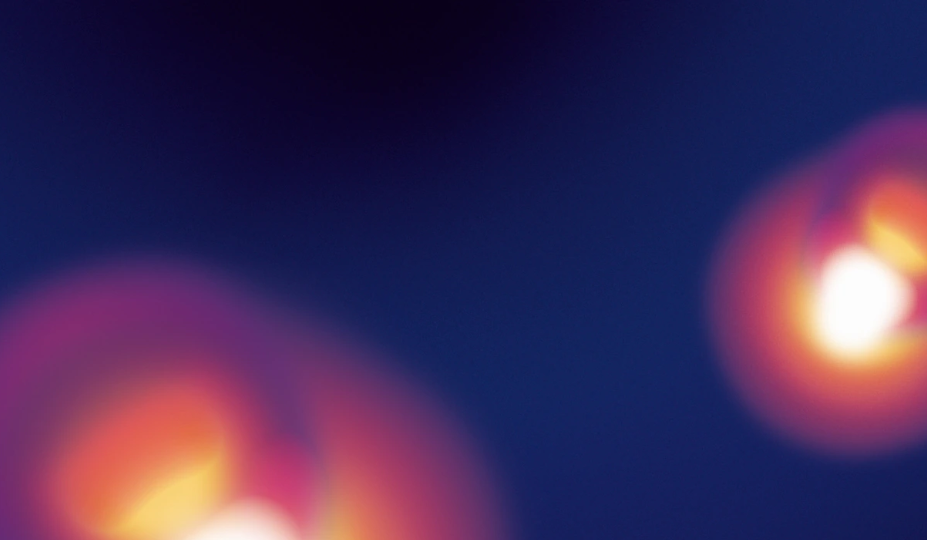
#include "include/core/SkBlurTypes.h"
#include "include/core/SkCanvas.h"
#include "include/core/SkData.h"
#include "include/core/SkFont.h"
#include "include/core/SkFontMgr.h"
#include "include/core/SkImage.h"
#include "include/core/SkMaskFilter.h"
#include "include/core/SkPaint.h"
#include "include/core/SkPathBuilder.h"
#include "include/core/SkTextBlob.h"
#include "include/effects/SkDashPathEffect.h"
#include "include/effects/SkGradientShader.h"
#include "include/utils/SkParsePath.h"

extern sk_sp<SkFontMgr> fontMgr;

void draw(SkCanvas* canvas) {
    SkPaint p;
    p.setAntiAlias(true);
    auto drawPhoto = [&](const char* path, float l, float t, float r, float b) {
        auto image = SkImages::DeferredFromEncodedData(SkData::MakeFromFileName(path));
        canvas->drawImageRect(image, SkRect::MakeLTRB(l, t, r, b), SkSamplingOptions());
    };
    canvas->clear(0xFFFFFFFF);
    drawPhoto("media/1.png", 0, 0, 927, 540);
}
